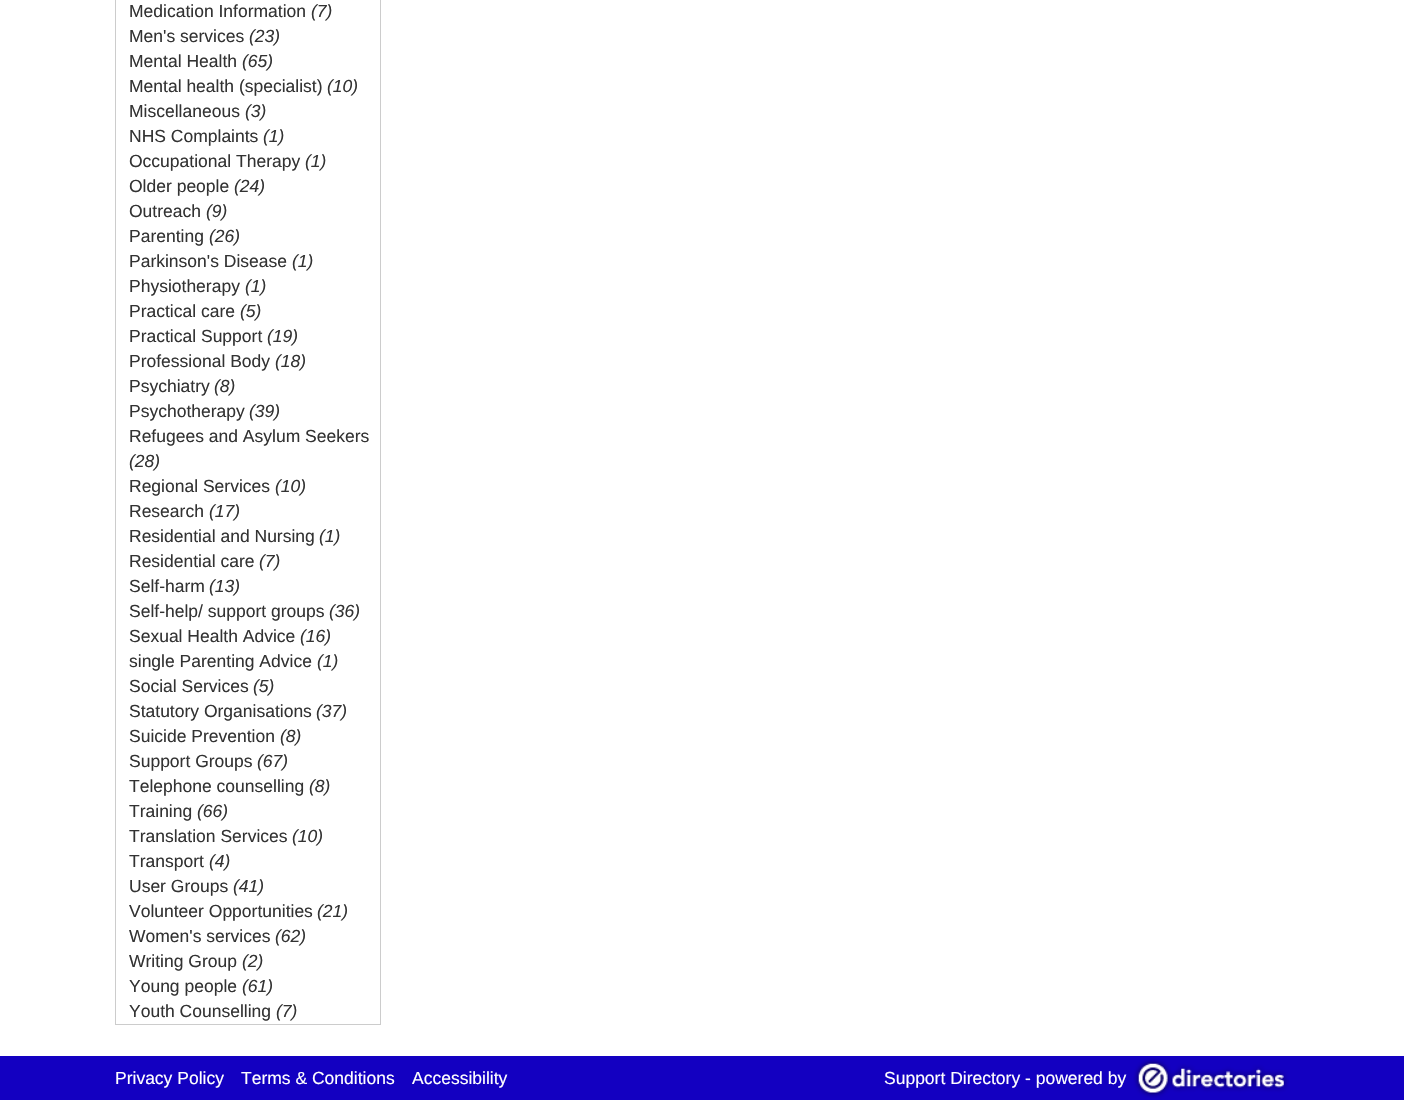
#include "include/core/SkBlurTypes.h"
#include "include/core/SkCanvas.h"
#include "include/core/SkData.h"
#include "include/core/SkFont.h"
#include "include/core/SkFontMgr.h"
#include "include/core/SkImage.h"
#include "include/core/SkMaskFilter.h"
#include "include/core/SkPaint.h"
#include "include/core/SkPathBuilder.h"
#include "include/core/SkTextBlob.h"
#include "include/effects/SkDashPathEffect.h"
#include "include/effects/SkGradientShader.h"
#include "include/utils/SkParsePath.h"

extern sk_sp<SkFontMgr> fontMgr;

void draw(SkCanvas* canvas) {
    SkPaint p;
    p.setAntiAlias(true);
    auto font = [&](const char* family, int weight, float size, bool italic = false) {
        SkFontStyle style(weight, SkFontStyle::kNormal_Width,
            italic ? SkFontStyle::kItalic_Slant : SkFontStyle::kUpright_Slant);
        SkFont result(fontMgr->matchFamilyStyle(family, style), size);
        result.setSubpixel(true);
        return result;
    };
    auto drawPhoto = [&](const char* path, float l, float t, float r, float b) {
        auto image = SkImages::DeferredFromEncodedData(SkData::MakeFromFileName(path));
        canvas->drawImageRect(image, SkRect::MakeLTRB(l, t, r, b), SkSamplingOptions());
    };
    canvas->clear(0xFFFFFFFF);
    {
        const struct { float l, t, r, b; SkColor color; } items[] = {
            {380, 0, 381, 1025, 0xFFCCCCCC},
            {115, 1024, 381, 1025, 0xFFCCCCCC},
            {115, 0, 116, 1025, 0xFFCCCCCC},
        };
        for (auto [l, t, r, b, color] : items) {
            p.setColor(color);
            canvas->drawRect(SkRect::MakeLTRB(l, t, r, b), p);
        }
    }
    auto font1 = font("Liberation Sans", 400, 17.5f);
    p.setColor(0xFF333333);
    canvas->drawString("Medication Information", 129, 17, font1, p);
    auto font2 = font("Liberation Sans", 400, 17.5f, true);
    canvas->drawString("(7)", 311, 17, font2, p);
    canvas->drawString("Men's services", 129, 42, font1, p);
    canvas->drawString("(23)", 249, 42, font2, p);
    canvas->drawString("Mental Health", 129, 67, font1, p);
    canvas->drawString("(65)", 242, 67, font2, p);
    canvas->drawString("Mental health (specialist)", 129, 92, font1, p);
    canvas->drawString("(10)", 327, 92, font2, p);
    canvas->drawString("Miscellaneous", 129, 117, font1, p);
    canvas->drawString("(3)", 245, 117, font2, p);
    canvas->drawString("NHS Complaints", 129, 142, font1, p);
    canvas->drawString("(1)", 263, 142, font2, p);
    canvas->drawString("Occupational Therapy", 129, 167, font1, p);
    canvas->drawString("(1)", 305, 167, font2, p);
    canvas->drawString("Older people", 129, 192, font1, p);
    canvas->drawString("(24)", 234, 192, font2, p);
    canvas->drawString("Outreach", 129, 217, font1, p);
    canvas->drawString("(9)", 206, 217, font2, p);
    canvas->drawString("Parenting", 129, 242, font1, p);
    canvas->drawString("(26)", 209, 242, font2, p);
    canvas->drawString("Parkinson's Disease", 129, 267, font1, p);
    canvas->drawString("(1)", 292, 267, font2, p);
    canvas->drawString("Physiotherapy", 129, 292, font1, p);
    canvas->drawString("(1)", 245, 292, font2, p);
    canvas->drawString("Practical care", 129, 317, font1, p);
    canvas->drawString("(5)", 240, 317, font2, p);
    canvas->drawString("Practical Support", 129, 342, font1, p);
    canvas->drawString("(19)", 267, 342, font2, p);
    canvas->drawString("Professional Body", 129, 367, font1, p);
    canvas->drawString("(18)", 275, 367, font2, p);
    canvas->drawString("Psychiatry", 129, 392, font1, p);
    canvas->drawString("(8)", 214, 392, font2, p);
    canvas->drawString("Psychotherapy", 129, 417, font1, p);
    canvas->drawString("(39)", 249, 417, font2, p);
    canvas->drawString("Refugees and Asylum Seekers", 129, 442, font1, p);
    canvas->drawString("(28)", 129, 467, font2, p);
    canvas->drawString("Regional Services", 129, 492, font1, p);
    canvas->drawString("(10)", 275, 492, font2, p);
    canvas->drawString("Research", 129, 517, font1, p);
    canvas->drawString("(17)", 209, 517, font2, p);
    canvas->drawString("Residential and Nursing", 129, 542, font1, p);
    canvas->drawString("(1)", 319, 542, font2, p);
    canvas->drawString("Residential care", 129, 567, font1, p);
    canvas->drawString("(7)", 259, 567, font2, p);
    canvas->drawString("Self-harm", 129, 592, font1, p);
    canvas->drawString("(13)", 209, 592, font2, p);
    canvas->drawString("Self-help/ support groups", 129, 617, font1, p);
    canvas->drawString("(36)", 329, 617, font2, p);
    canvas->drawString("Sexual Health Advice", 129, 642, font1, p);
    canvas->drawString("(16)", 300, 642, font2, p);
    canvas->drawString("single Parenting Advice", 129, 667, font1, p);
    canvas->drawString("(1)", 317, 667, font2, p);
    canvas->drawString("Social Services", 129, 692, font1, p);
    canvas->drawString("(5)", 253, 692, font2, p);
    canvas->drawString("Statutory Organisations", 129, 717, font1, p);
    canvas->drawString("(37)", 316, 717, font2, p);
    canvas->drawString("Suicide Prevention", 129, 742, font1, p);
    canvas->drawString("(8)", 280, 742, font2, p);
    canvas->drawString("Support Groups", 129, 767, font1, p);
    canvas->drawString("(67)", 257, 767, font2, p);
    canvas->drawString("Telephone counselling", 129, 792, font1, p);
    canvas->drawString("(8)", 309, 792, font2, p);
    canvas->drawString("Training", 129, 817, font1, p);
    canvas->drawString("(66)", 197, 817, font2, p);
    canvas->drawString("Translation Services", 129, 842, font1, p);
    canvas->drawString("(10)", 292, 842, font2, p);
    canvas->drawString("Transport", 129, 867, font1, p);
    canvas->drawString("(4)", 209, 867, font2, p);
    canvas->drawString("User Groups", 129, 892, font1, p);
    canvas->drawString("(41)", 233, 892, font2, p);
    canvas->drawString("Volunteer Opportunities", 129, 917, font1, p);
    canvas->drawString("(21)", 317, 917, font2, p);
    canvas->drawString("Women's services", 129, 942, font1, p);
    canvas->drawString("(62)", 275, 942, font2, p);
    canvas->drawString("Writing Group", 129, 967, font1, p);
    canvas->drawString("(2)", 242, 967, font2, p);
    canvas->drawString("Young people", 129, 992, font1, p);
    canvas->drawString("(61)", 242, 992, font2, p);
    canvas->drawString("Youth Counselling", 129, 1017, font1, p);
    canvas->drawString("(7)", 276, 1017, font2, p);
    p.setColor(0xFF1300C1);
    canvas->drawRect(SkRect::MakeLTRB(0, 1056, 1404, 1100), p);
    p.setColor(0xFFFFFFFF);
    {
        const struct { const char* s; float x, y; } items[] = {
            {"Privacy Policy", 115, 1084},
            {"Terms & Conditions", 241, 1084},
            {"Accessibility", 412, 1084},
            {"Support Directory - powered by", 884, 1084},
        };
        for (auto [s, x, y] : items) {
            canvas->drawString(s, x, y, font1, p);
        }
    }
    drawPhoto("media/1.png", 1133, 1058, 1289, 1098);
}
